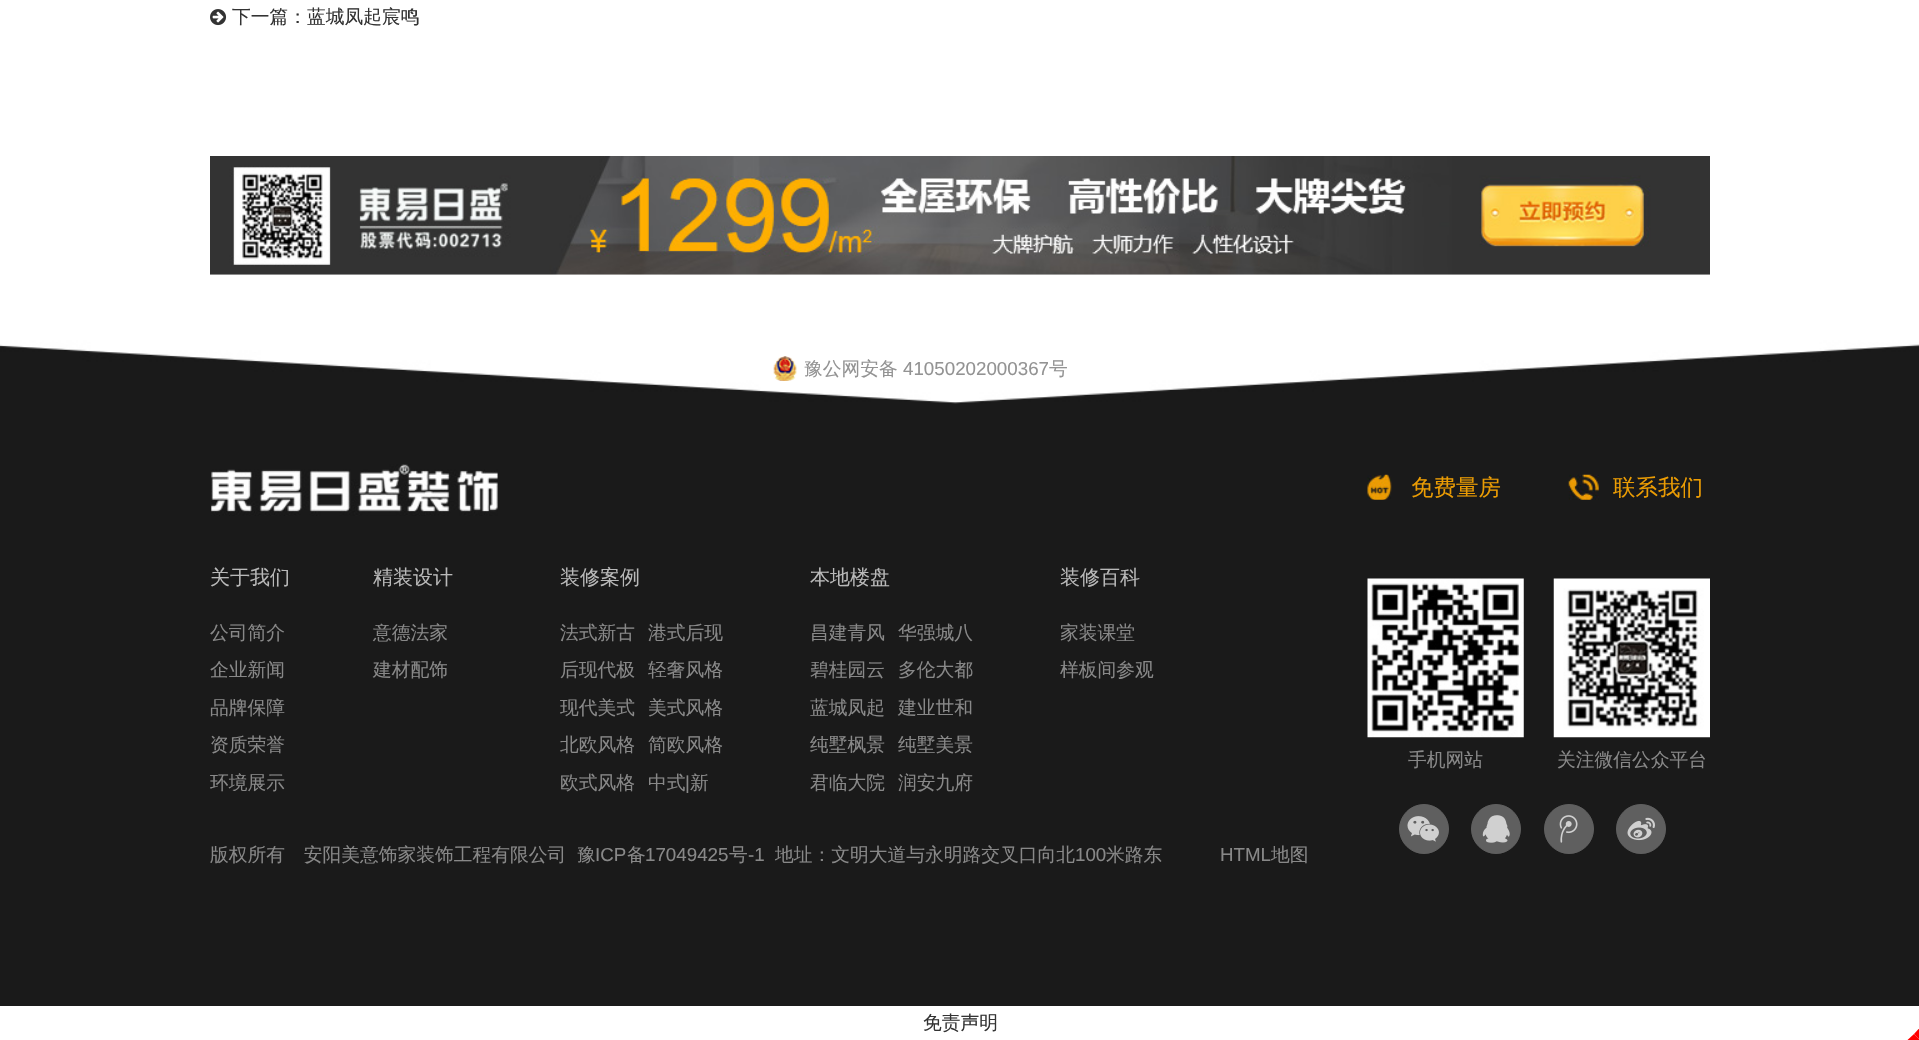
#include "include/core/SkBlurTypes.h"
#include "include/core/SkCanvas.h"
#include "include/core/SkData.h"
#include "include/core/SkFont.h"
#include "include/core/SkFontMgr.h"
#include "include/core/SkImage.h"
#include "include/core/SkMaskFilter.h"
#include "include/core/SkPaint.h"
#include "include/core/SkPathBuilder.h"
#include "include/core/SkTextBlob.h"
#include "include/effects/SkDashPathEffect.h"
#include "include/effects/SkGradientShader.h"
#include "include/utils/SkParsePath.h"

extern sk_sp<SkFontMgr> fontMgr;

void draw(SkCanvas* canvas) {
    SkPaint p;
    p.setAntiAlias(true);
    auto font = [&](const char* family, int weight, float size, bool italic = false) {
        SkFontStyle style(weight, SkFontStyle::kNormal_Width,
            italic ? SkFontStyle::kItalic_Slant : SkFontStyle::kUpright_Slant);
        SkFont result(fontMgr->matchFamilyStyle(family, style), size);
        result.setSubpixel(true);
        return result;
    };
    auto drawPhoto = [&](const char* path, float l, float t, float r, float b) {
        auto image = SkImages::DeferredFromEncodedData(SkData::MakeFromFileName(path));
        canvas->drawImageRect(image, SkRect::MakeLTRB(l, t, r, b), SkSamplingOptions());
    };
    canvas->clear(0xFFFFFFFF);
    drawPhoto("media/1.png", 210, 9, 227, 26);
    auto font1 = font("WenQuanYi Zen Hei", 500, 18.75f);
    p.setColor(0xFF333333);
    canvas->drawString("下一篇：蓝城凤起宸鸣", 232, 23, font1, p);
    drawPhoto("media/2.png", 210, 156, 1710, 275);
    p.setColor(0xFF1A1A1A);
    canvas->drawRect(SkRect::MakeLTRB(0, 403, 1919, 1006), p);
    drawPhoto("media/3.png", 0, 331, 1919, 404);
    drawPhoto("media/4.png", 773, 356, 797, 381);
    p.setColor(0xFF939393);
    canvas->drawString("豫公网安备", 804, 375, font1, p);
    auto font2 = font("Liberation Sans", 400, 18.75f);
    canvas->drawString("41050202000367", 903, 375, font2, p);
    canvas->drawString("号", 1049, 375, font1, p);
    drawPhoto("media/5.png", 211, 464, 498, 516);
    auto font3 = font("WenQuanYi Zen Hei", 500, 20);
    p.setColor(0xFFB9B9B9);
    canvas->drawString("关于我们", 210, 584, font3, p);
    p.setColor(0xFF888888);
    {
        const struct { const char* s; float x, y; } items[] = {
            {"公司简介", 210, 639},
            {"企业新闻", 210, 676},
            {"品牌保障", 210, 714},
            {"资质荣誉", 210, 751},
            {"环境展示", 210, 789},
        };
        for (auto [s, x, y] : items) {
            canvas->drawString(s, x, y, font1, p);
        }
    }
    p.setColor(0xFFB9B9B9);
    canvas->drawString("精装设计", 373, 584, font3, p);
    p.setColor(0xFF888888);
    canvas->drawString("意德法家", 373, 639, font1, p);
    canvas->drawString("建材配饰", 373, 676, font1, p);
    p.setColor(0xFFB9B9B9);
    canvas->drawString("装修案例", 560, 584, font3, p);
    p.setColor(0xFF888888);
    {
        const struct { const char* s; float x, y; } items[] = {
            {"法式新古", 560, 639},
            {"港式后现", 648, 639},
            {"后现代极", 560, 676},
            {"轻奢风格", 648, 676},
            {"现代美式", 560, 714},
            {"美式风格", 648, 714},
            {"北欧风格", 560, 751},
            {"简欧风格", 648, 751},
            {"欧式风格", 560, 789},
            {"中式", 648, 789},
        };
        for (auto [s, x, y] : items) {
            canvas->drawString(s, x, y, font1, p);
        }
    }
    canvas->drawString("|", 685, 789, font2, p);
    canvas->drawString("新", 690, 789, font1, p);
    p.setColor(0xFFB9B9B9);
    canvas->drawString("本地楼盘", 810, 584, font3, p);
    p.setColor(0xFF888888);
    {
        const struct { const char* s; float x, y; } items[] = {
            {"昌建青风", 810, 639},
            {"华强城八", 898, 639},
            {"碧桂园云", 810, 676},
            {"多伦大都", 898, 676},
            {"蓝城凤起", 810, 714},
            {"建业世和", 898, 714},
            {"纯墅枫景", 810, 751},
            {"纯墅美景", 898, 751},
            {"君临大院", 810, 789},
            {"润安九府", 898, 789},
        };
        for (auto [s, x, y] : items) {
            canvas->drawString(s, x, y, font1, p);
        }
    }
    p.setColor(0xFFB9B9B9);
    canvas->drawString("装修百科", 1060, 584, font3, p);
    p.setColor(0xFF888888);
    canvas->drawString("家装课堂", 1060, 639, font1, p);
    canvas->drawString("样板间参观", 1060, 676, font1, p);
    drawPhoto("media/6.png", 1367, 474, 1392, 500);
    auto font4 = font("WenQuanYi Zen Hei", 500, 22.5f);
    p.setColor(0xFFEB9C03);
    canvas->drawString("免费量房", 1411, 495, font4, p);
    drawPhoto("media/7.png", 1568, 474, 1599, 500);
    canvas->drawString("联系我们", 1613, 495, font4, p);
    drawPhoto("media/8.png", 1367, 578, 1524, 738);
    p.setColor(0xFF888888);
    canvas->drawString("手机网站", 1408, 766, font1, p);
    drawPhoto("media/9.png", 1553, 578, 1710, 738);
    canvas->drawString("关注微信公众平台", 1557, 766, font1, p);
    p.setColor(0xFF5F5F5F);
    canvas->drawCircle(1424, 829, 24.5f, p);
    p.setStyle(SkPaint::kStroke_Style);
    p.setStrokeWidth(1);
    canvas->drawCircle(1424, 829, 24.5f, p);
    drawPhoto("media/10.png", 1407, 816, 1439, 842);
    p.setStyle(SkPaint::kFill_Style);
    canvas->drawCircle(1496, 829, 24.5f, p);
    p.setStyle(SkPaint::kStroke_Style);
    canvas->drawCircle(1496, 829, 24.5f, p);
    drawPhoto("media/11.png", 1482, 815, 1510, 843);
    p.setStyle(SkPaint::kFill_Style);
    canvas->drawCircle(1569, 829, 24.5f, p);
    p.setStyle(SkPaint::kStroke_Style);
    canvas->drawCircle(1569, 829, 24.5f, p);
    drawPhoto("media/12.png", 1559, 815, 1578, 843);
    p.setStyle(SkPaint::kFill_Style);
    canvas->drawCircle(1641, 829, 24.5f, p);
    p.setStyle(SkPaint::kStroke_Style);
    canvas->drawCircle(1641, 829, 24.5f, p);
    drawPhoto("media/13.png", 1627, 817, 1655, 841);
    p.setStyle(SkPaint::kFill_Style);
    p.setColor(0xFF888888);
    canvas->drawString("版权所有　安阳美意饰家装饰工程有限公司", 210, 861, font1, p);
    canvas->drawString("豫", 577, 861, font1, p);
    canvas->drawString("ICP", 595, 861, font2, p);
    canvas->drawString("备", 627, 861, font1, p);
    canvas->drawString("17049425", 645, 861, font2, p);
    canvas->drawString("号", 729, 861, font1, p);
    canvas->drawString("-1", 748, 861, font2, p);
    canvas->drawString("地址：文明大道与永明路交叉口向北", 775, 861, font1, p);
    canvas->drawString("100", 1075, 861, font2, p);
    canvas->drawString("米路东", 1106, 861, font1, p);
    canvas->drawString("HTML", 1220, 861, font2, p);
    canvas->drawString("地图", 1271, 861, font1, p);
    p.setColor(0xFFFF0000);
    canvas->drawPath(SkPathBuilder().moveTo(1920, 1027.5f).lineTo(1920, 1040).lineTo(1914, 1034).close().detach(), p);
    canvas->drawPath(SkPathBuilder().moveTo(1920, 1040).lineTo(1907.5f, 1040).lineTo(1914, 1034).close().detach(), p);
    p.setColor(0xFF333333);
    canvas->drawString("免责声明", 923, 1029, font1, p);
}
